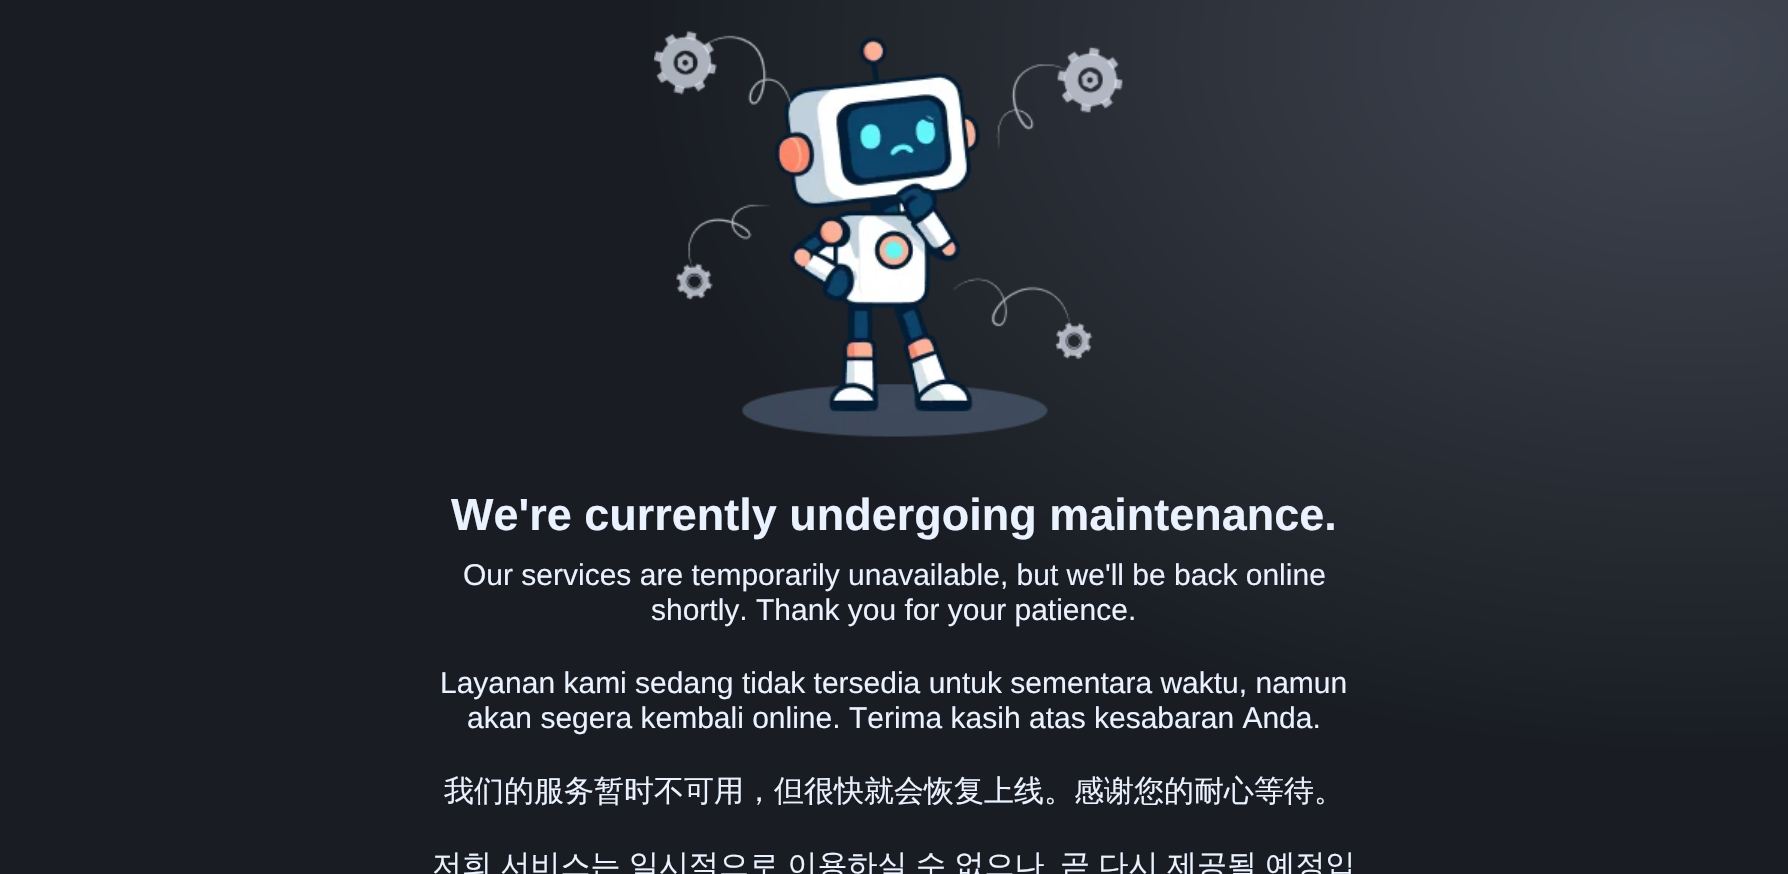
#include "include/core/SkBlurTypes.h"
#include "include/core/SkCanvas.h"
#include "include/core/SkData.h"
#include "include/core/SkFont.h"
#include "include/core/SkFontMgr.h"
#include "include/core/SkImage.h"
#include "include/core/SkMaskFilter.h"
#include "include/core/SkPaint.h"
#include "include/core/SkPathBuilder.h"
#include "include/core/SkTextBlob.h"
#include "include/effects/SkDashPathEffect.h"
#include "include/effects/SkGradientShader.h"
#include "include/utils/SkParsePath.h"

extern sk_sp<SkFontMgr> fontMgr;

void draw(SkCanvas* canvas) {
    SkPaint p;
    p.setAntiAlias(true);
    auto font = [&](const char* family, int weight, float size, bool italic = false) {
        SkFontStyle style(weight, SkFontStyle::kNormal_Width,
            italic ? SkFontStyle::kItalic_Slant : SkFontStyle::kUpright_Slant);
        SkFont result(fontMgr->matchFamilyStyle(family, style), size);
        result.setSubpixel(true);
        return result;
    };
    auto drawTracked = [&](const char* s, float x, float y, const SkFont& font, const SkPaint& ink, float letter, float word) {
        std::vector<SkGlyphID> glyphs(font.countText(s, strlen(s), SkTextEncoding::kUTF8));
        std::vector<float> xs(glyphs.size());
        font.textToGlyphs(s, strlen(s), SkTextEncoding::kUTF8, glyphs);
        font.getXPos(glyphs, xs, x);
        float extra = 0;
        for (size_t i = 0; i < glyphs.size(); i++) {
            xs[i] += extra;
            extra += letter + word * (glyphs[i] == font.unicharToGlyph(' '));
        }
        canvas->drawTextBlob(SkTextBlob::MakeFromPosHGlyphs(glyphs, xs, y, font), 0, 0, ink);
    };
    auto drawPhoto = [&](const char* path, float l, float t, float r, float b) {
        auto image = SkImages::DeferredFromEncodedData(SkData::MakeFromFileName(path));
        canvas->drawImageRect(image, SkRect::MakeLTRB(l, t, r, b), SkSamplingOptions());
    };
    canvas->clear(0xFFFFFFFF);
    {
        const SkColor colors[] = {0xFF404651, 0xFF191D23, 0xFF191D23};
        const float stops[] = {0, 0.66f, 1};
        SkMatrix m = SkMatrix::Translate(1692, 52).preScale(1594, 1066);
        p.setShader(SkGradientShader::MakeRadial({0, 0}, 1, colors, stops, 3, SkTileMode::kClamp, 0, &m));
        p.setAlpha(255);
    }
    canvas->drawRect(SkRect::MakeLTRB(0, 0, 1788, 874), p);
    drawPhoto("media/1.png", 654, 31, 1123, 437);
    auto font1 = font("Liberation Sans", 700, 45);
    p.setShader(nullptr);
    p.setColor(0xFFEBF2FF);
    canvas->drawString("We're currently undergoing maintenance.", 451, 530, font1, p);
    auto font2 = font("Liberation Sans", 400, 30);
    {
        const struct { const char* s; float x, y; } items[] = {
            {"Our services are temporarily unavailable, but we'll be back online", 463, 585},
            {"shortly. Thank you for your patience.", 651, 620},
            {"Layanan kami sedang tidak tersedia untuk sementara waktu, namun", 440, 693},
            {"akan segera kembali online. Terima kasih atas kesabaran Anda.", 467, 728},
        };
        for (auto [s, x, y] : items) {
            canvas->drawString(s, x, y, font2, p);
        }
    }
    auto font3 = font("WenQuanYi Zen Hei", 500, 30);
    canvas->drawString("我们的服务暂时不可用，但很快就会恢复上线。感谢您的耐心等待。", 444, 801, font3, p);
    drawTracked("저희 서비스는 일시적으로 이용하실 수 없으나", 432, 875, font3, p, 0, -0.5f);
    drawTracked("곧 다시 제공될 예정입", 1060, 875, font3, p, 0, -0.5f);
}
